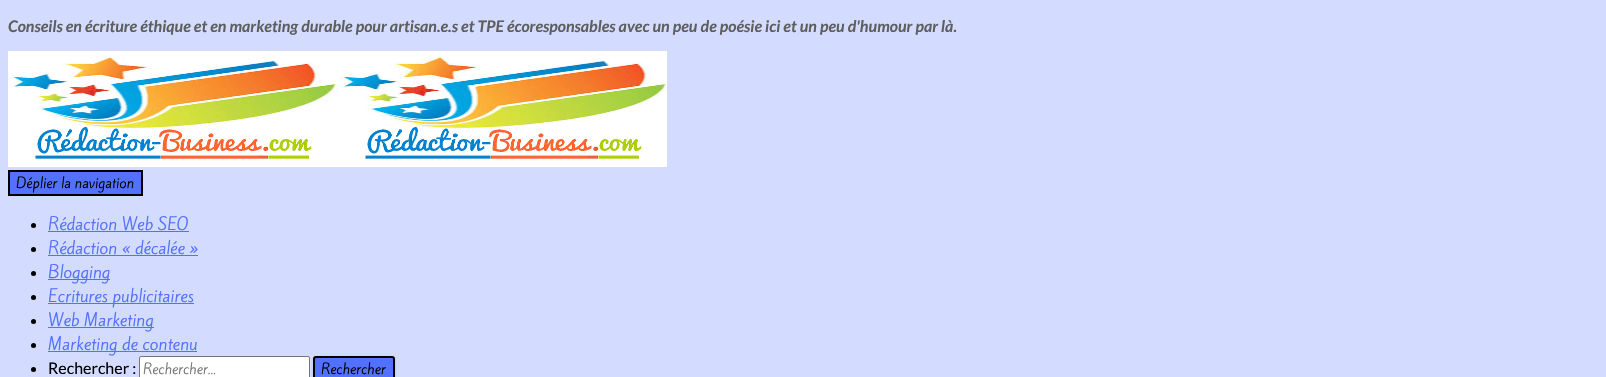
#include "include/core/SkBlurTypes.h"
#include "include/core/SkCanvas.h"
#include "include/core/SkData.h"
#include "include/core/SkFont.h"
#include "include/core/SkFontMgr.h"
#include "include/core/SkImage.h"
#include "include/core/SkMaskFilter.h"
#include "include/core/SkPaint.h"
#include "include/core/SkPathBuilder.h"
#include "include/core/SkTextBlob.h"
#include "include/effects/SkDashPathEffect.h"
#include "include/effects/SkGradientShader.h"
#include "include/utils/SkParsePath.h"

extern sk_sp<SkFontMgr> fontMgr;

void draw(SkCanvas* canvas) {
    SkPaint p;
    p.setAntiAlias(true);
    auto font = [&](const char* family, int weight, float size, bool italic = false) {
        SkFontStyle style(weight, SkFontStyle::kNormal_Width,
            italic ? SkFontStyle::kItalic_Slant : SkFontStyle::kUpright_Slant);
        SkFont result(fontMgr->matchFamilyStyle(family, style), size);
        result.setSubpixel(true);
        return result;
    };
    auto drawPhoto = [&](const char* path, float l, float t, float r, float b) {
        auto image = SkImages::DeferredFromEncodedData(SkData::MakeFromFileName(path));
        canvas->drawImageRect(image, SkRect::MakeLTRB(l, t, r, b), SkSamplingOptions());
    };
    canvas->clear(0xFFD3DBFF);
    auto font1 = font("Lato", 700, 16, true);
    p.setColor(0xFF5E5E5E);
    canvas->drawString("Conseils en écriture éthique et en marketing durable pour artisan.e.s et TPE écoresponsables avec un peu de poésie ici et un peu d'humour par là.", 8, 32, font1, p);
    drawPhoto("media/1.png", 8, 51, 338, 167);
    drawPhoto("media/2.png", 338, 51, 667, 167);
    p.setColor(0xFF5271FF);
    canvas->drawRect(SkRect::MakeLTRB(9, 171, 142, 195), p);
    p.setStyle(SkPaint::kStroke_Style);
    p.setStrokeWidth(2);
    p.setColor(0xFF000000);
    canvas->drawRect(SkRect::MakeLTRB(9, 171, 142, 195), p);
    auto font2 = font("Kite One", 400, 13.25f);
    p.setStyle(SkPaint::kFill_Style);
    canvas->drawString("Déplier la navigation", 16, 188, font2, p);
    canvas->drawCircle(33.5f, 225.5f, 2.5f, p);
    auto font3 = font("Kite One", 400, 16);
    p.setColor(0xFF5271FF);
    canvas->drawString("Rédaction Web SEO", 48, 230, font3, p);
    canvas->drawRect(SkRect::MakeLTRB(48, 231, 189, 232), p);
    p.setColor(0xFF000000);
    canvas->drawCircle(33.5f, 249.5f, 2.5f, p);
    p.setColor(0xFF5271FF);
    canvas->drawString("Rédaction « décalée »", 48, 254, font3, p);
    canvas->drawRect(SkRect::MakeLTRB(48, 255, 198, 256), p);
    p.setColor(0xFF000000);
    canvas->drawCircle(33.5f, 273.5f, 2.5f, p);
    p.setColor(0xFF5271FF);
    canvas->drawRect(SkRect::MakeLTRB(48, 279, 110, 280), p);
    canvas->drawString("Blogging", 48, 278, font3, p);
    p.setColor(0xFF000000);
    canvas->drawCircle(33.5f, 297.5f, 2.5f, p);
    p.setColor(0xFF5271FF);
    canvas->drawRect(SkRect::MakeLTRB(48, 303, 194, 304), p);
    canvas->drawString("Ecritures publicitaires", 48, 302, font3, p);
    p.setColor(0xFF000000);
    canvas->drawCircle(33.5f, 321.5f, 2.5f, p);
    p.setColor(0xFF5271FF);
    canvas->drawRect(SkRect::MakeLTRB(48, 327, 154, 328), p);
    canvas->drawString("Web Marketing", 48, 326, font3, p);
    p.setColor(0xFF000000);
    canvas->drawCircle(33.5f, 345.5f, 2.5f, p);
    p.setColor(0xFF5271FF);
    canvas->drawRect(SkRect::MakeLTRB(48, 351, 197, 352), p);
    canvas->drawString("Marketing de contenu", 48, 350, font3, p);
    p.setColor(0xFF000000);
    canvas->drawCircle(33.5f, 369.5f, 2.5f, p);
    auto font4 = font("Lato", 400, 16);
    canvas->drawString("Rechercher :", 48, 374, font4, p);
    p.setColor(0xFFFFFFFF);
    canvas->drawRoundRect(SkRect::MakeLTRB(139.5f, 356.5f, 309.5f, 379.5f), 1.5f, 1.5f, p);
    p.setStyle(SkPaint::kStroke_Style);
    p.setStrokeWidth(1);
    p.setColor(0xFF767676);
    canvas->drawRoundRect(SkRect::MakeLTRB(139.5f, 356.5f, 309.5f, 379.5f), 1.5f, 1.5f, p);
    p.setStyle(SkPaint::kFill_Style);
    p.setColor(0xFF757575);
    canvas->drawString("Rechercher…", 143, 374, font2, p);
    p.setColor(0x1F5271FF);
    p.setMaskFilter(SkMaskFilter::MakeBlur(kNormal_SkBlurStyle, 2.5f));
    canvas->drawRoundRect(SkRect::MakeLTRB(313, 357, 395, 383), 3, 3, p);
    p.setMaskFilter(nullptr);
    p.setColor(0x245271FF);
    p.setMaskFilter(SkMaskFilter::MakeBlur(kNormal_SkBlurStyle, 1));
    canvas->drawRoundRect(SkRect::MakeLTRB(313, 358, 395, 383), 3, 3, p);
    p.setMaskFilter(nullptr);
    p.setColor(0xFF5271FF);
    canvas->drawRoundRect(SkRect::MakeLTRB(314, 357, 394, 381), 2, 2, p);
    p.setStyle(SkPaint::kStroke_Style);
    p.setStrokeWidth(2);
    p.setColor(0xFF000000);
    canvas->drawRoundRect(SkRect::MakeLTRB(314, 357, 394, 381), 2, 2, p);
    p.setStyle(SkPaint::kFill_Style);
    canvas->drawString("Rechercher", 321, 374, font2, p);
}
